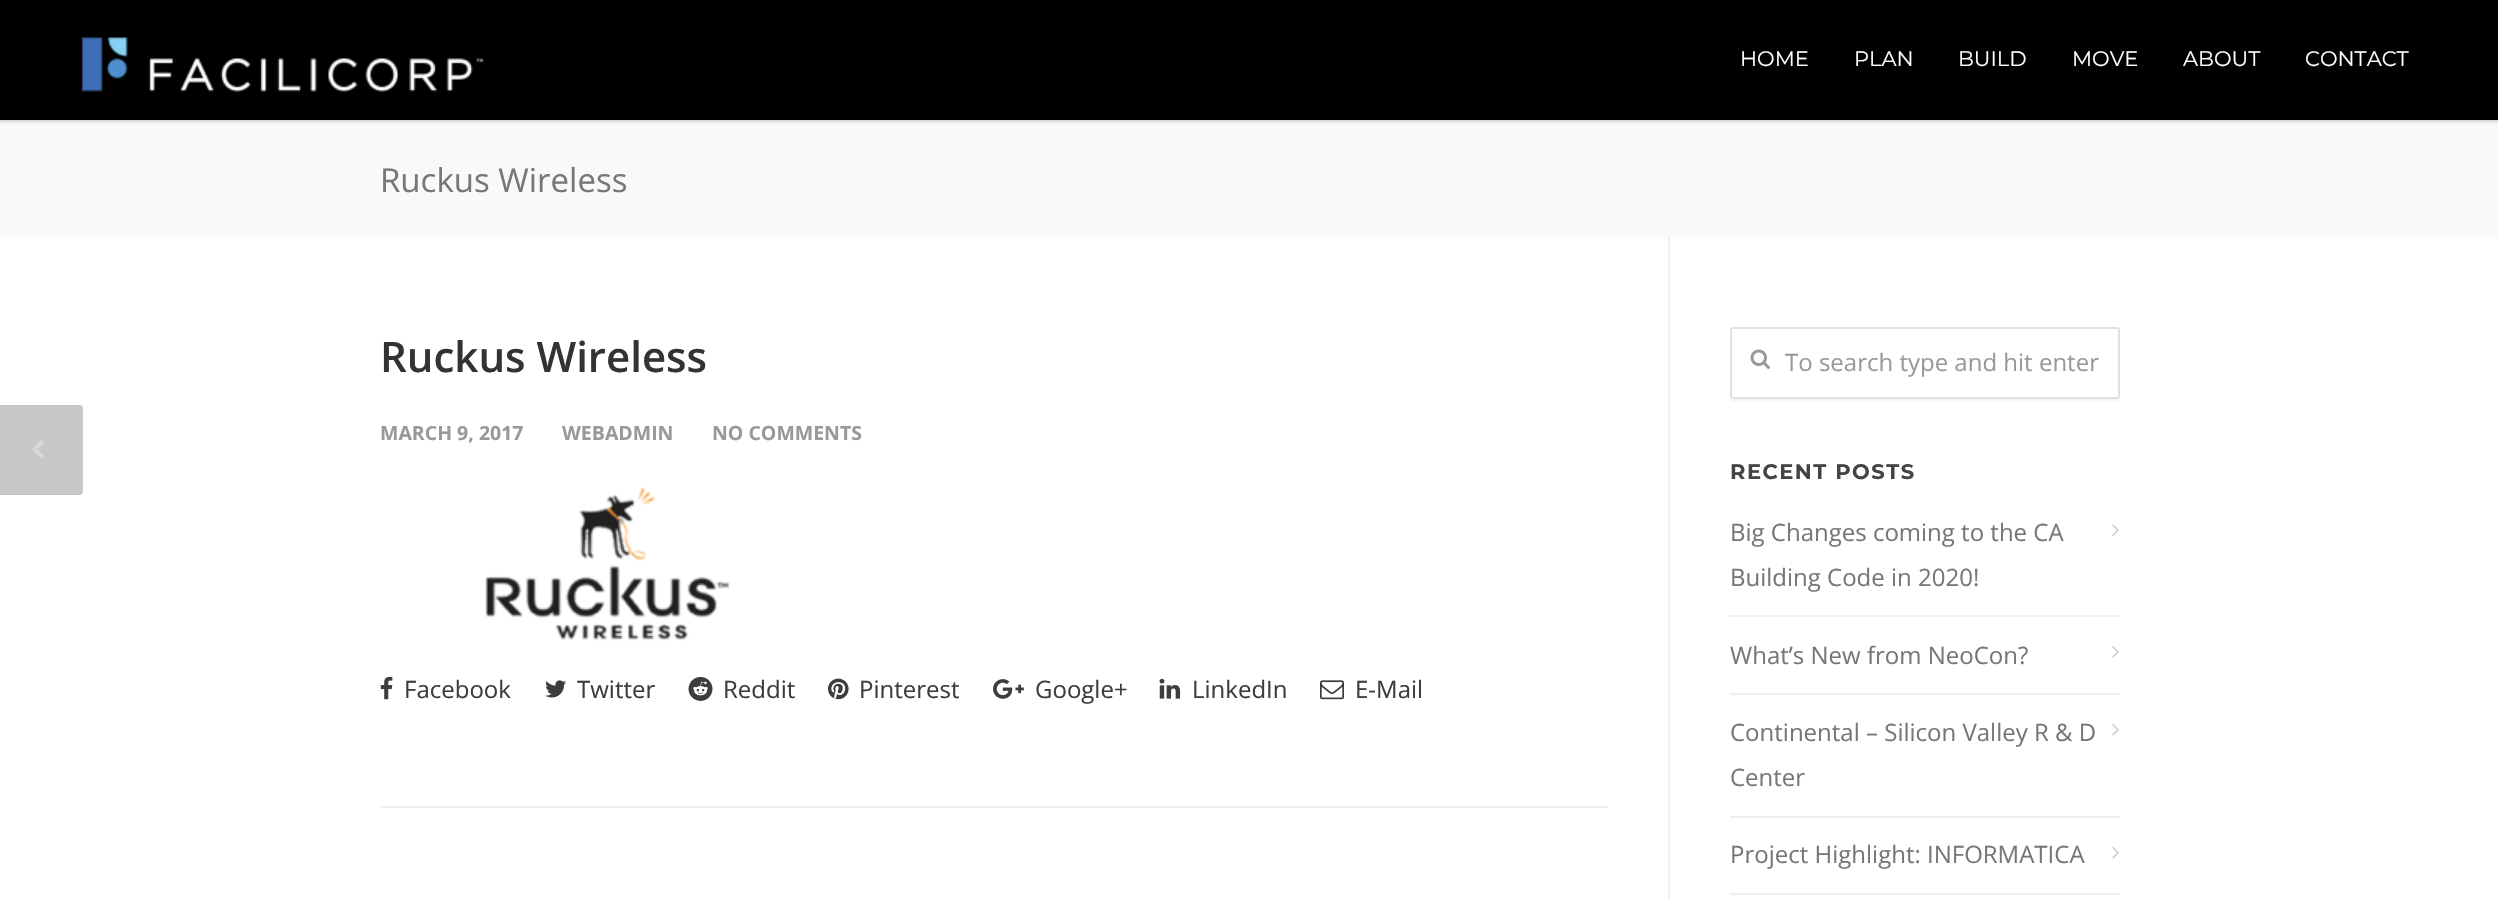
#include "include/core/SkBlurTypes.h"
#include "include/core/SkCanvas.h"
#include "include/core/SkData.h"
#include "include/core/SkFont.h"
#include "include/core/SkFontMgr.h"
#include "include/core/SkImage.h"
#include "include/core/SkMaskFilter.h"
#include "include/core/SkPaint.h"
#include "include/core/SkPathBuilder.h"
#include "include/core/SkTextBlob.h"
#include "include/effects/SkDashPathEffect.h"
#include "include/effects/SkGradientShader.h"
#include "include/utils/SkParsePath.h"

extern sk_sp<SkFontMgr> fontMgr;

void draw(SkCanvas* canvas) {
    SkPaint p;
    p.setAntiAlias(true);
    auto font = [&](const char* family, int weight, float size, bool italic = false) {
        SkFontStyle style(weight, SkFontStyle::kNormal_Width,
            italic ? SkFontStyle::kItalic_Slant : SkFontStyle::kUpright_Slant);
        SkFont result(fontMgr->matchFamilyStyle(family, style), size);
        result.setSubpixel(true);
        return result;
    };
    auto drawTracked = [&](const char* s, float x, float y, const SkFont& font, const SkPaint& ink, float letter, float word) {
        std::vector<SkGlyphID> glyphs(font.countText(s, strlen(s), SkTextEncoding::kUTF8));
        std::vector<float> xs(glyphs.size());
        font.textToGlyphs(s, strlen(s), SkTextEncoding::kUTF8, glyphs);
        font.getXPos(glyphs, xs, x);
        float extra = 0;
        for (size_t i = 0; i < glyphs.size(); i++) {
            xs[i] += extra;
            extra += letter + word * (glyphs[i] == font.unicharToGlyph(' '));
        }
        canvas->drawTextBlob(SkTextBlob::MakeFromPosHGlyphs(glyphs, xs, y, font), 0, 0, ink);
    };
    auto drawPhoto = [&](const char* path, float l, float t, float r, float b) {
        auto image = SkImages::DeferredFromEncodedData(SkData::MakeFromFileName(path));
        canvas->drawImageRect(image, SkRect::MakeLTRB(l, t, r, b), SkSamplingOptions());
    };
    canvas->clear(0xFFFFFFFF);
    p.setColor(0xFFF9F9F9);
    canvas->drawRect(SkRect::MakeLTRB(0, 120, 2498, 237), p);
    p.setColor(0x29000000);
    p.setMaskFilter(SkMaskFilter::MakeBlur(kNormal_SkBlurStyle, 1.5f));
    canvas->drawRect(SkRect::MakeLTRB(-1, -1, 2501, 122), p);
    p.setMaskFilter(nullptr);
    p.setColor(0xFF000000);
    canvas->drawRect(SkRect::MakeLTRB(0, 0, 2498, 120), p);
    drawPhoto("media/1.png", 81, 37, 484, 92);
    auto font1 = font("Montserrat", 400, 21);
    p.setColor(0xFFFFFFFF);
    {
        const struct { const char* s; float x, y; } items[] = {
            {"HOME", 1740, 66},
            {"PLAN", 1854, 66},
            {"BUILD", 1958, 66},
            {"MOVE", 2072, 66},
            {"ABOUT", 2183, 66},
            {"CONTACT", 2305, 66},
        };
        for (auto [s, x, y] : items) {
            canvas->drawString(s, x, y, font1, p);
        }
    }
    auto font2 = font("Open Sans", 400, 33);
    p.setColor(0xFF777777);
    canvas->drawString("Ruckus Wireless", 380, 192, font2, p);
    p.setColor(0xFFEFEFEF);
    canvas->drawRect(SkRect::MakeLTRB(1668, 237, 1670, 899), p);
    p.setColor(0xFFC7C7C7);
    canvas->drawPath(SkPathBuilder().moveTo(-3, 405).lineTo(80, 405).cubicTo(81.5f, 405, 83, 406.5f, 83, 408).lineTo(83, 492).cubicTo(83, 493.5f, 81.5f, 495, 80, 495).lineTo(-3, 495).close().detach(), p);
    drawPhoto("media/2.png", 32, 440, 44, 459);
    auto font3 = font("Open Sans", 600, 42);
    p.setColor(0xFF333333);
    canvas->drawString("Ruckus Wireless", 380, 372, font3, p);
    auto font4 = font("Open Sans", 700, 19.5f);
    p.setColor(0xFF999999);
    {
        const struct { const char* s; float x, y; } items[] = {
            {"MARCH 9, 2017", 380, 440},
            {"WEBADMIN", 562, 440},
            {"NO COMMENTS", 712, 440},
        };
        for (auto [s, x, y] : items) {
            canvas->drawString(s, x, y, font4, p);
        }
    }
    drawPhoto("media/3.png", 485, 487, 730, 641);
    drawPhoto("media/4.png", 380, 676, 393, 700);
    auto font5 = font("Open Sans", 400, 24);
    p.setColor(0xFF3D3D3D);
    canvas->drawString("Facebook", 404, 698, font5, p);
    drawPhoto("media/5.png", 545, 680, 566, 698);
    canvas->drawString("Twitter", 577, 698, font5, p);
    drawPhoto("media/6.png", 688, 676, 713, 701);
    canvas->drawString("Reddit", 723, 698, font5, p);
    drawPhoto("media/7.png", 828, 678, 849, 700);
    canvas->drawString("Pinterest", 859, 698, font5, p);
    drawPhoto("media/8.png", 993, 679, 1024, 699);
    canvas->drawString("Google+", 1035, 698, font5, p);
    drawPhoto("media/9.png", 1159, 678, 1181, 699);
    canvas->drawString("LinkedIn", 1192, 698, font5, p);
    drawPhoto("media/10.png", 1320, 680, 1344, 700);
    canvas->drawString("E-Mail", 1355, 698, font5, p);
    p.setColor(0xFFEFEFEF);
    canvas->drawRect(SkRect::MakeLTRB(380, 806, 1608, 808), p);
    p.setColor(0xFFF7F7F7);
    canvas->drawPath(SkPathBuilder().moveTo(1730, 398).lineTo(1730, 399).cubicTo(1730, 401, 1731, 402, 1733, 402).lineTo(2117, 402).cubicTo(2119, 402, 2120, 401, 2120, 399).lineTo(2120, 333).lineTo(2120, 331).lineTo(2120, 396).cubicTo(2120, 398, 2118, 399, 2116, 399).lineTo(1732, 399).cubicTo(1731, 399, 1731, 398, 1730, 398).close().detach(), p);
    p.setColor(0xFFFFFFFF);
    canvas->drawRoundRect(SkRect::MakeLTRB(1731, 328, 2119, 398), 2, 2, p);
    p.setStyle(SkPaint::kStroke_Style);
    p.setStrokeWidth(2);
    p.setColor(0xFFE1E1E1);
    canvas->drawRoundRect(SkRect::MakeLTRB(1731, 328, 2119, 398), 2, 2, p);
    drawPhoto("media/11.png", 1750, 349, 1770, 369);
    p.setStyle(SkPaint::kFill_Style);
    p.setColor(0xFF999999);
    canvas->drawString("To search type and hit enter", 1785, 371, font5, p);
    auto font6 = font("Montserrat", 700, 21);
    p.setColor(0xFF444444);
    drawTracked("RECENT POSTS", 1730, 479, font6, p, 1.5f, 0);
    p.setColor(0xFFEFEFEF);
    canvas->drawRect(SkRect::MakeLTRB(1730, 615, 2120, 617), p);
    p.setColor(0xFF777777);
    canvas->drawString("Big Changes coming to the CA", 1730, 541, font5, p);
    canvas->drawString("Building Code in 2020!", 1730, 586, font5, p);
    drawPhoto("media/12.png", 2112, 524, 2119, 536);
    p.setColor(0xFFEFEFEF);
    canvas->drawRect(SkRect::MakeLTRB(1730, 693, 2120, 695), p);
    p.setColor(0xFF777777);
    canvas->drawString("What’s New from NeoCon?", 1730, 664, font5, p);
    drawPhoto("media/13.png", 2112, 646, 2119, 658);
    p.setColor(0xFFEFEFEF);
    canvas->drawRect(SkRect::MakeLTRB(1730, 816, 2120, 818), p);
    p.setColor(0xFF777777);
    canvas->drawString("Continental – Silicon Valley R & D", 1730, 741, font5, p);
    canvas->drawString("Center", 1730, 786, font5, p);
    drawPhoto("media/13.png", 2112, 724, 2119, 736);
    p.setColor(0xFFEFEFEF);
    canvas->drawRect(SkRect::MakeLTRB(1730, 893, 2120, 895), p);
    p.setColor(0xFF777777);
    canvas->drawString("Project Highlight: INFORMATICA", 1730, 863, font5, p);
    drawPhoto("media/13.png", 2112, 847, 2119, 859);
}
